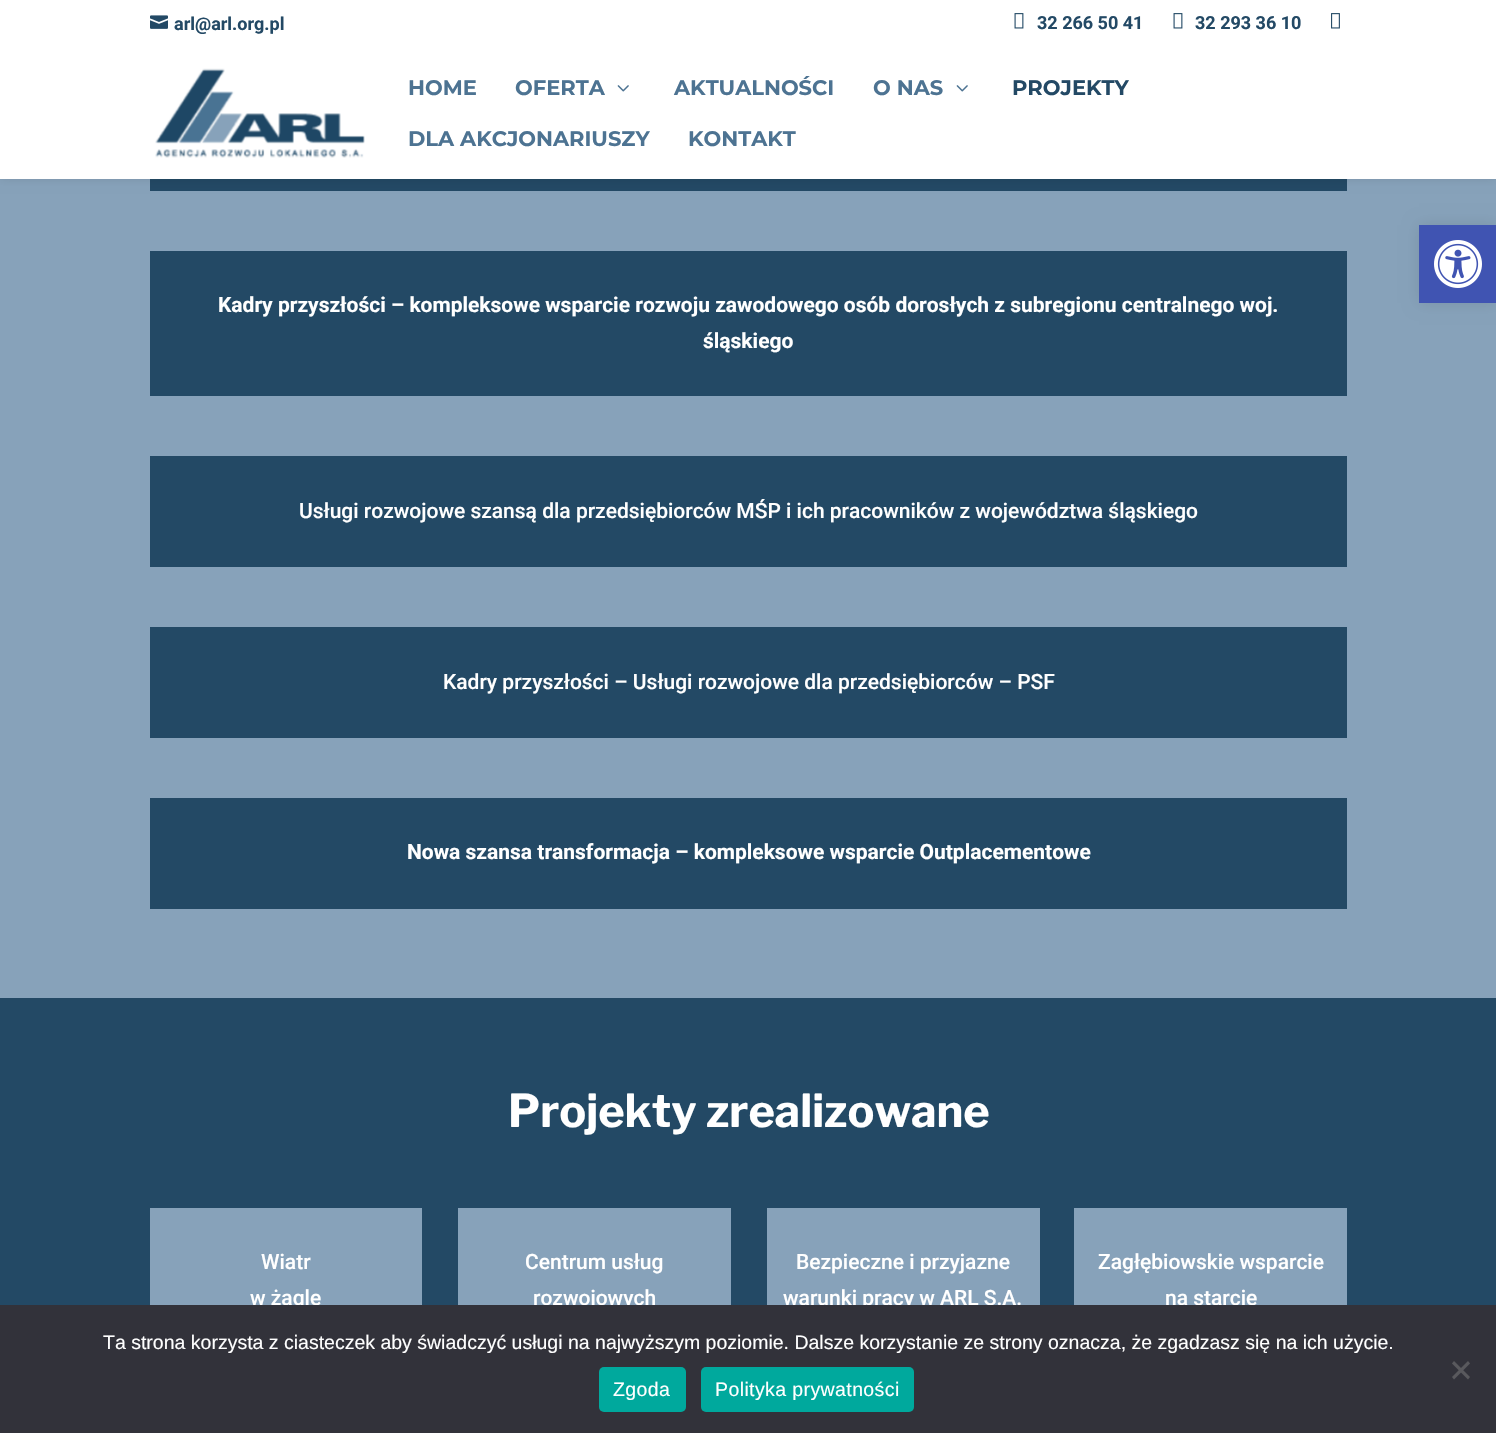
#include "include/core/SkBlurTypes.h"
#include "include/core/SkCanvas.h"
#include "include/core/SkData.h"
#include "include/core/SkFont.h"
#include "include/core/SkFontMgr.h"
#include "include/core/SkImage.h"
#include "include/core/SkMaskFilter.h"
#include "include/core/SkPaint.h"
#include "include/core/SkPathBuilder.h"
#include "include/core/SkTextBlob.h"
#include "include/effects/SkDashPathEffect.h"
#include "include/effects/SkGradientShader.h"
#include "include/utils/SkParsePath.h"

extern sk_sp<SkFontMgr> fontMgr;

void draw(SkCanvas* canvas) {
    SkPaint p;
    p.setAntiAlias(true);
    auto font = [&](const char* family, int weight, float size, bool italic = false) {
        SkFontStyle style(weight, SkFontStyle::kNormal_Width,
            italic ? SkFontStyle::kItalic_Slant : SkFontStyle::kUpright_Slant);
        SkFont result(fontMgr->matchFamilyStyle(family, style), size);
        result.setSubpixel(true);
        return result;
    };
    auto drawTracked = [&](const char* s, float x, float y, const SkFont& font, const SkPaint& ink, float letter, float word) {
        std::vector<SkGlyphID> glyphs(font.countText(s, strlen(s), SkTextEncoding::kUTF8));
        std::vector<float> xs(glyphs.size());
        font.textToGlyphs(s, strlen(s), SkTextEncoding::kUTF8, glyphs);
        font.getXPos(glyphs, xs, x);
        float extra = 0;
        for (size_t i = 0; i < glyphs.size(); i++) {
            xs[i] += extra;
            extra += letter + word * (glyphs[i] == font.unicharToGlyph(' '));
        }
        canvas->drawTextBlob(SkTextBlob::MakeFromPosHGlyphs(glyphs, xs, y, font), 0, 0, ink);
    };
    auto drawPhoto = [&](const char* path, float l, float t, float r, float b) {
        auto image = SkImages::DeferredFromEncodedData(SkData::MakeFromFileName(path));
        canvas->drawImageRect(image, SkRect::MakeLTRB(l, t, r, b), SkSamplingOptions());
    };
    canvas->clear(0xFF87A2BA);
    p.setColor(0xFF234965);
    canvas->drawRect(SkRect::MakeLTRB(150, 179, 1347, 191), p);
    p.setColor(0x1A000000);
    p.setMaskFilter(SkMaskFilter::MakeBlur(kNormal_SkBlurStyle, 5));
    canvas->drawRect(SkRect::MakeLTRB(0, 47, 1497, 179), p);
    p.setMaskFilter(nullptr);
    p.setColor(0xFFFFFFFF);
    canvas->drawRect(SkRect::MakeLTRB(0, 0, 1496, 179), p);
    drawPhoto("media/1.png", 150, 15, 168, 29);
    auto font1 = font("Roboto", 700, 18);
    p.setColor(0xFF234965);
    canvas->drawString("arl@arl.org.pl", 174, 30, font1, p);
    drawPhoto("media/2.png", 1014, 13, 1024, 29);
    canvas->drawString("32 266 50 41", 1037, 29, font1, p);
    drawPhoto("media/2.png", 1173, 13, 1183, 29);
    canvas->drawString("32 293 36 10", 1195, 29, font1, p);
    drawPhoto("media/3.png", 1331, 13, 1340, 29);
    drawPhoto("media/4.png", 155, 47, 391, 158);
    auto font2 = font("Montserrat", 100, 21);
    p.setColor(0xFF4D7392);
    canvas->drawString("HOME", 408, 95, font2, p);
    canvas->drawString("OFERTA", 515, 95, font2, p);
    drawPhoto("media/5.png", 617, 85, 629, 92);
    canvas->drawString("AKTUALNOŚCI", 674, 95, font2, p);
    canvas->drawString("O NAS", 873, 95, font2, p);
    drawPhoto("media/5.png", 956, 85, 968, 92);
    p.setColor(0xFF234965);
    canvas->drawString("PROJEKTY", 1012, 95, font2, p);
    p.setColor(0xFF4D7392);
    canvas->drawString("DLA AKCJONARIUSZY", 408, 146, font2, p);
    canvas->drawString("KONTAKT", 688, 146, font2, p);
    p.setColor(0xFF234965);
    canvas->drawRect(SkRect::MakeLTRB(150, 251, 1347, 396), p);
    auto font3 = font("Roboto", 700, 21);
    p.setColor(0xFFFFFFFF);
    canvas->drawString("Kadry przyszłości – kompleksowe wsparcie rozwoju zawodowego osób dorosłych z subregionu centralnego woj.", 218, 312, font3, p);
    canvas->drawString("śląskiego", 703, 348, font3, p);
    p.setColor(0xFF234965);
    canvas->drawRect(SkRect::MakeLTRB(150, 456, 1347, 567), p);
    auto font4 = font("Roboto", 500, 21);
    p.setColor(0xFFFFFFFF);
    canvas->drawString("Usługi rozwojowe szansą dla przedsiębiorców MŚP i ich pracowników z województwa śląskiego", 299, 518, font4, p);
    p.setColor(0xFF234965);
    canvas->drawRect(SkRect::MakeLTRB(150, 627, 1347, 738), p);
    p.setColor(0xFFFFFFFF);
    canvas->drawString("Kadry przyszłości – Usługi rozwojowe dla przedsiębiorców – PSF", 443, 689, font4, p);
    p.setColor(0xFF234965);
    canvas->drawRect(SkRect::MakeLTRB(150, 798, 1347, 909), p);
    p.setColor(0xFFFFFFFF);
    canvas->drawString("Nowa szansa transformacja – kompleksowe wsparcie Outplacementowe", 407, 859, font3, p);
    p.setColor(0xFF234965);
    canvas->drawRect(SkRect::MakeLTRB(0, 998, 1496, 1305), p);
    auto font5 = font("Libre Franklin", 100, 45);
    p.setColor(0xFFFFFFFF);
    canvas->drawString("Projekty zrealizowane", 508, 1127, font5, p);
    p.setColor(0xFF87A2BA);
    canvas->drawRect(SkRect::MakeLTRB(150, 1208, 422, 1305), p);
    p.setColor(0xFFFFFFFF);
    canvas->drawString("Wiatr", 261, 1269, font4, p);
    canvas->drawString("w żagle", 250, 1305, font4, p);
    p.setColor(0xFF87A2BA);
    canvas->drawRect(SkRect::MakeLTRB(458, 1208, 731, 1305), p);
    p.setColor(0xFFFFFFFF);
    canvas->drawString("Centrum usług", 525, 1269, font4, p);
    canvas->drawString("rozwojowych", 533, 1305, font4, p);
    p.setColor(0xFF87A2BA);
    canvas->drawRect(SkRect::MakeLTRB(767, 1208, 1040, 1305), p);
    p.setColor(0xFFFFFFFF);
    canvas->drawString("Bezpieczne i przyjazne", 796, 1269, font4, p);
    canvas->drawString("warunki pracy w ARL S.A.", 783, 1305, font4, p);
    p.setColor(0xFF87A2BA);
    canvas->drawRect(SkRect::MakeLTRB(1074, 1208, 1347, 1305), p);
    p.setColor(0xFFFFFFFF);
    canvas->drawString("Zagłębiowskie wsparcie", 1098, 1269, font4, p);
    canvas->drawString("na starcie", 1165, 1305, font4, p);
    p.setColor(0x1A000000);
    p.setMaskFilter(SkMaskFilter::MakeBlur(kNormal_SkBlurStyle, 7.5f));
    canvas->drawRect(SkRect::MakeLTRB(1419, 225, 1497, 303), p);
    p.setMaskFilter(nullptr);
    p.setColor(0xFF4054B2);
    canvas->drawRect(SkRect::MakeLTRB(1419, 225, 1496, 303), p);
    drawPhoto("media/6.png", 1434, 240, 1482, 288);
    p.setColor(0xFF32323A);
    canvas->drawRect(SkRect::MakeLTRB(0, 1305, 1496, 1433), p);
    auto font6 = font("Liberation Sans", 400, 19.5f);
    p.setColor(0xFFFFFFFF);
    canvas->drawString("Ta strona korzysta z ciasteczek aby świadczyć usługi na najwyższym poziomie. Dalsze korzystanie ze strony oznacza, że zgadzasz się na ich użycie.", 103, 1349, font6, p);
    p.setColor(0xFF59595D);
    canvas->drawPath(SkPathBuilder().moveTo(1468, 1361).lineTo(1470, 1363.5f).lineTo(1454, 1379.5f).lineTo(1452, 1377).close().detach(), p);
    canvas->drawPath(SkPathBuilder().moveTo(1452, 1363.5f).lineTo(1454, 1361).lineTo(1470, 1377).lineTo(1468, 1379.5f).close().detach(), p);
    p.setColor(0xFF00A99D);
    canvas->drawRoundRect(SkRect::MakeLTRB(599, 1367, 686, 1412), 5, 5, p);
    p.setColor(0xFFFFFFFF);
    drawTracked("Zgoda", 613, 1396, font6, p, 0.4f, 0);
    p.setColor(0xFF00A99D);
    canvas->drawRoundRect(SkRect::MakeLTRB(701, 1367, 914, 1412), 5, 5, p);
    p.setColor(0xFFFFFFFF);
    drawTracked("Polityka prywatności", 715, 1396, font6, p, 0.4f, 0);
}
